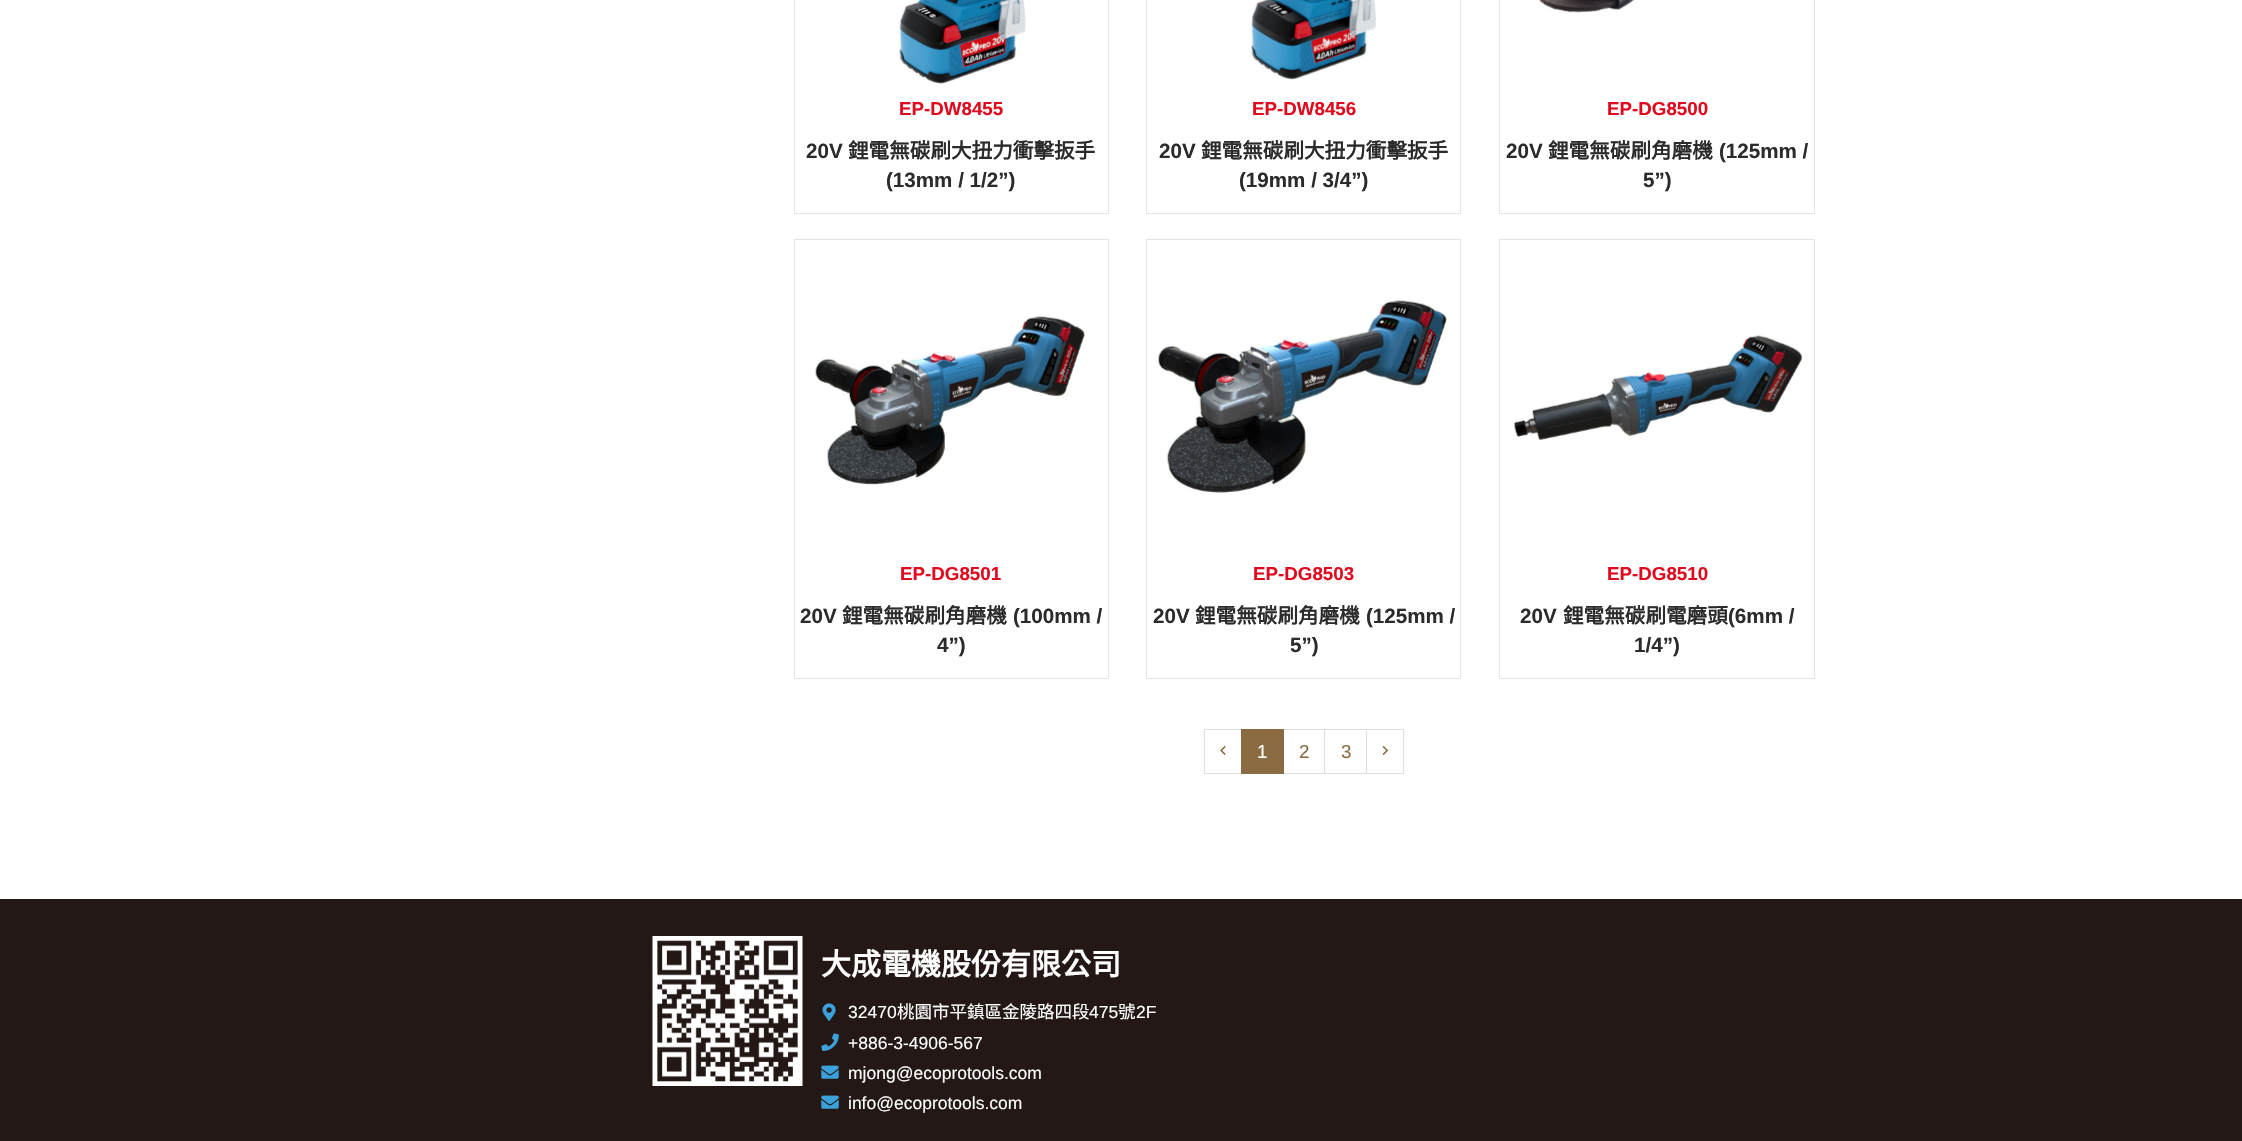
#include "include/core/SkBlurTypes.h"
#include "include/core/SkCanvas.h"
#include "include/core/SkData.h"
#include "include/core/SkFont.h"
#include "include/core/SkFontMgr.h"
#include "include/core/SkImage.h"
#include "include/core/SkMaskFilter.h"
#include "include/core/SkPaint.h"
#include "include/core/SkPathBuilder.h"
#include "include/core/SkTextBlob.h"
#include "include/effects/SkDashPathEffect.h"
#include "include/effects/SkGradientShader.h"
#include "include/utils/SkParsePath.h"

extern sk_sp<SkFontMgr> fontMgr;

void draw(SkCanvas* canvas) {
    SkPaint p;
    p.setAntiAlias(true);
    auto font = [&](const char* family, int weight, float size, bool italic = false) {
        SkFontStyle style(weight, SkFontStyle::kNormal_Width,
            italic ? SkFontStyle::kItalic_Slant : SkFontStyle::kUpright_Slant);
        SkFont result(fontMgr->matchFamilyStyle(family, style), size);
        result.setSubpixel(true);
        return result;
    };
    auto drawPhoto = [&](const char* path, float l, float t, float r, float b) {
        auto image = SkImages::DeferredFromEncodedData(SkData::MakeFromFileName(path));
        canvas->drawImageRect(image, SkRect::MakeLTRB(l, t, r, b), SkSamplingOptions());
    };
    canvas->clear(0xFFFFFFFF);
    p.setStyle(SkPaint::kStroke_Style);
    p.setStrokeWidth(1);
    p.setColor(0xFFE1E4EA);
    canvas->drawRect(SkRect::MakeLTRB(794.5f, -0.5f, 1108.5f, 213.5f), p);
    drawPhoto("media/1.png", 899, 0, 1026, 84);
    auto font1 = font("Liberation Sans", 700, 18.75f);
    p.setStyle(SkPaint::kFill_Style);
    p.setColor(0xFFDF0A1E);
    canvas->drawString("EP-DW8455", 899, 115, font1, p);
    auto font2 = font("Liberation Sans", 700, 20.6f);
    p.setColor(0xFF2B2B2B);
    canvas->drawString("20V", 806, 158, font2, p);
    auto font3 = font("Noto Sans CJK TC", 700, 20.6f);
    canvas->drawString("鋰電無碳刷大扭力衝擊扳手", 848, 158, font3, p);
    canvas->drawString("(13mm / 1/2”)", 886, 187, font2, p);
    p.setStyle(SkPaint::kStroke_Style);
    p.setColor(0xFFE1E4EA);
    canvas->drawRect(SkRect::MakeLTRB(1146.5f, -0.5f, 1460.5f, 213.5f), p);
    drawPhoto("media/2.png", 1251, 0, 1376, 80);
    p.setStyle(SkPaint::kFill_Style);
    p.setColor(0xFFDF0A1E);
    canvas->drawString("EP-DW8456", 1252, 115, font1, p);
    p.setColor(0xFF2B2B2B);
    canvas->drawString("20V", 1159, 158, font2, p);
    canvas->drawString("鋰電無碳刷大扭力衝擊扳手", 1201, 158, font3, p);
    canvas->drawString("(19mm / 3/4”)", 1239, 187, font2, p);
    p.setStyle(SkPaint::kStroke_Style);
    p.setColor(0xFFE1E4EA);
    canvas->drawRect(SkRect::MakeLTRB(1499.5f, -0.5f, 1814.5f, 213.5f), p);
    drawPhoto("media/3.png", 1538, 0, 1635, 13);
    p.setStyle(SkPaint::kFill_Style);
    p.setColor(0xFFDF0A1E);
    canvas->drawString("EP-DG8500", 1607, 115, font1, p);
    p.setColor(0xFF2B2B2B);
    canvas->drawString("20V", 1506, 158, font2, p);
    canvas->drawString("鋰電無碳刷角磨機", 1548, 158, font3, p);
    canvas->drawString("(125mm /", 1719, 158, font2, p);
    canvas->drawString("5”)", 1643, 187, font2, p);
    p.setStyle(SkPaint::kStroke_Style);
    p.setColor(0xFFE1E4EA);
    canvas->drawRect(SkRect::MakeLTRB(794.5f, 239.5f, 1108.5f, 678.5f), p);
    drawPhoto("media/4.png", 815, 316, 1085, 485);
    p.setStyle(SkPaint::kFill_Style);
    p.setColor(0xFFDF0A1E);
    canvas->drawString("EP-DG8501", 900, 580, font1, p);
    p.setColor(0xFF2B2B2B);
    canvas->drawString("20V", 800, 623, font2, p);
    canvas->drawString("鋰電無碳刷角磨機", 842, 623, font3, p);
    canvas->drawString("(100mm /", 1013, 623, font2, p);
    canvas->drawString("4”)", 937, 652, font2, p);
    p.setStyle(SkPaint::kStroke_Style);
    p.setColor(0xFFE1E4EA);
    canvas->drawRect(SkRect::MakeLTRB(1146.5f, 239.5f, 1460.5f, 678.5f), p);
    drawPhoto("media/5.png", 1158, 300, 1447, 493);
    p.setStyle(SkPaint::kFill_Style);
    p.setColor(0xFFDF0A1E);
    canvas->drawString("EP-DG8503", 1253, 580, font1, p);
    p.setColor(0xFF2B2B2B);
    canvas->drawString("20V", 1153, 623, font2, p);
    canvas->drawString("鋰電無碳刷角磨機", 1195, 623, font3, p);
    canvas->drawString("(125mm /", 1366, 623, font2, p);
    canvas->drawString("5”)", 1290, 652, font2, p);
    p.setStyle(SkPaint::kStroke_Style);
    p.setColor(0xFFE1E4EA);
    canvas->drawRect(SkRect::MakeLTRB(1499.5f, 239.5f, 1814.5f, 678.5f), p);
    drawPhoto("media/6.png", 1513, 335, 1803, 440);
    p.setStyle(SkPaint::kFill_Style);
    p.setColor(0xFFDF0A1E);
    canvas->drawString("EP-DG8510", 1607, 580, font1, p);
    p.setColor(0xFF2B2B2B);
    canvas->drawString("20V", 1520, 623, font2, p);
    canvas->drawString("鋰電無碳刷電磨頭", 1563, 623, font3, p);
    canvas->drawString("(6mm /", 1728, 623, font2, p);
    canvas->drawString("1/4”)", 1634, 652, font2, p);
    p.setStyle(SkPaint::kStroke_Style);
    p.setColor(0xFFDDDDDD);
    canvas->drawRect(SkRect::MakeLTRB(1204.5f, 729.5f, 1242.5f, 773.5f), p);
    drawPhoto("media/7.png", 1220, 745, 1226, 756);
    canvas->drawRect(SkRect::MakeLTRB(1283.5f, 729.5f, 1324.5f, 773.5f), p);
    p.setStyle(SkPaint::kFill_Style);
    p.setColor(0xFF8B6C42);
    canvas->drawRect(SkRect::MakeLTRB(1241, 729, 1284, 774), p);
    auto font4 = font("Liberation Sans", 400, 18.75f);
    p.setColor(0xFFFFFFFF);
    canvas->drawString("1", 1257, 758, font4, p);
    p.setColor(0xFF8B6C42);
    canvas->drawString("2", 1299, 758, font4, p);
    p.setStyle(SkPaint::kStroke_Style);
    p.setColor(0xFFDDDDDD);
    canvas->drawRect(SkRect::MakeLTRB(1324.5f, 729.5f, 1367.5f, 773.5f), p);
    p.setStyle(SkPaint::kFill_Style);
    p.setColor(0xFF8B6C42);
    canvas->drawString("3", 1341, 758, font4, p);
    p.setColor(0xFFFFFFFF);
    canvas->drawRect(SkRect::MakeLTRB(1367, 730, 1368, 773), p);
    p.setStyle(SkPaint::kStroke_Style);
    p.setColor(0xFFDDDDDD);
    canvas->drawRect(SkRect::MakeLTRB(1366.5f, 729.5f, 1403.5f, 773.5f), p);
    drawPhoto("media/8.png", 1382, 745, 1389, 756);
    p.setStyle(SkPaint::kFill_Style);
    p.setColor(0xFF231815);
    canvas->drawRect(SkRect::MakeLTRB(0, 899, 2242, 1141), p);
    drawPhoto("media/9.png", 652, 936, 803, 1086);
    auto font5 = font("Noto Sans CJK TC", 700, 30);
    p.setColor(0xFFFFFFFF);
    canvas->drawString("大成電機股份有限公司", 821, 975, font5, p);
    drawPhoto("media/10.png", 822, 1003, 836, 1021);
    auto font6 = font("Liberation Sans", 400, 17.5f);
    canvas->drawString("32470", 848, 1018, font6, p);
    auto font7 = font("Noto Sans CJK TC", 400, 17.5f);
    canvas->drawString("桃園市平鎮區金陵路四段", 897, 1018, font7, p);
    canvas->drawString("475", 1089, 1018, font6, p);
    canvas->drawString("號", 1118, 1018, font7, p);
    canvas->drawString("2F", 1136, 1018, font6, p);
    drawPhoto("media/11.png", 821, 1033, 839, 1051);
    canvas->drawString("+886-3-4906-567", 848, 1049, font6, p);
    drawPhoto("media/12.png", 821, 1065, 839, 1079);
    canvas->drawString("mjong@ecoprotools.com", 848, 1079, font6, p);
    drawPhoto("media/12.png", 821, 1095, 839, 1109);
    canvas->drawString("info@ecoprotools.com", 848, 1109, font6, p);
}
